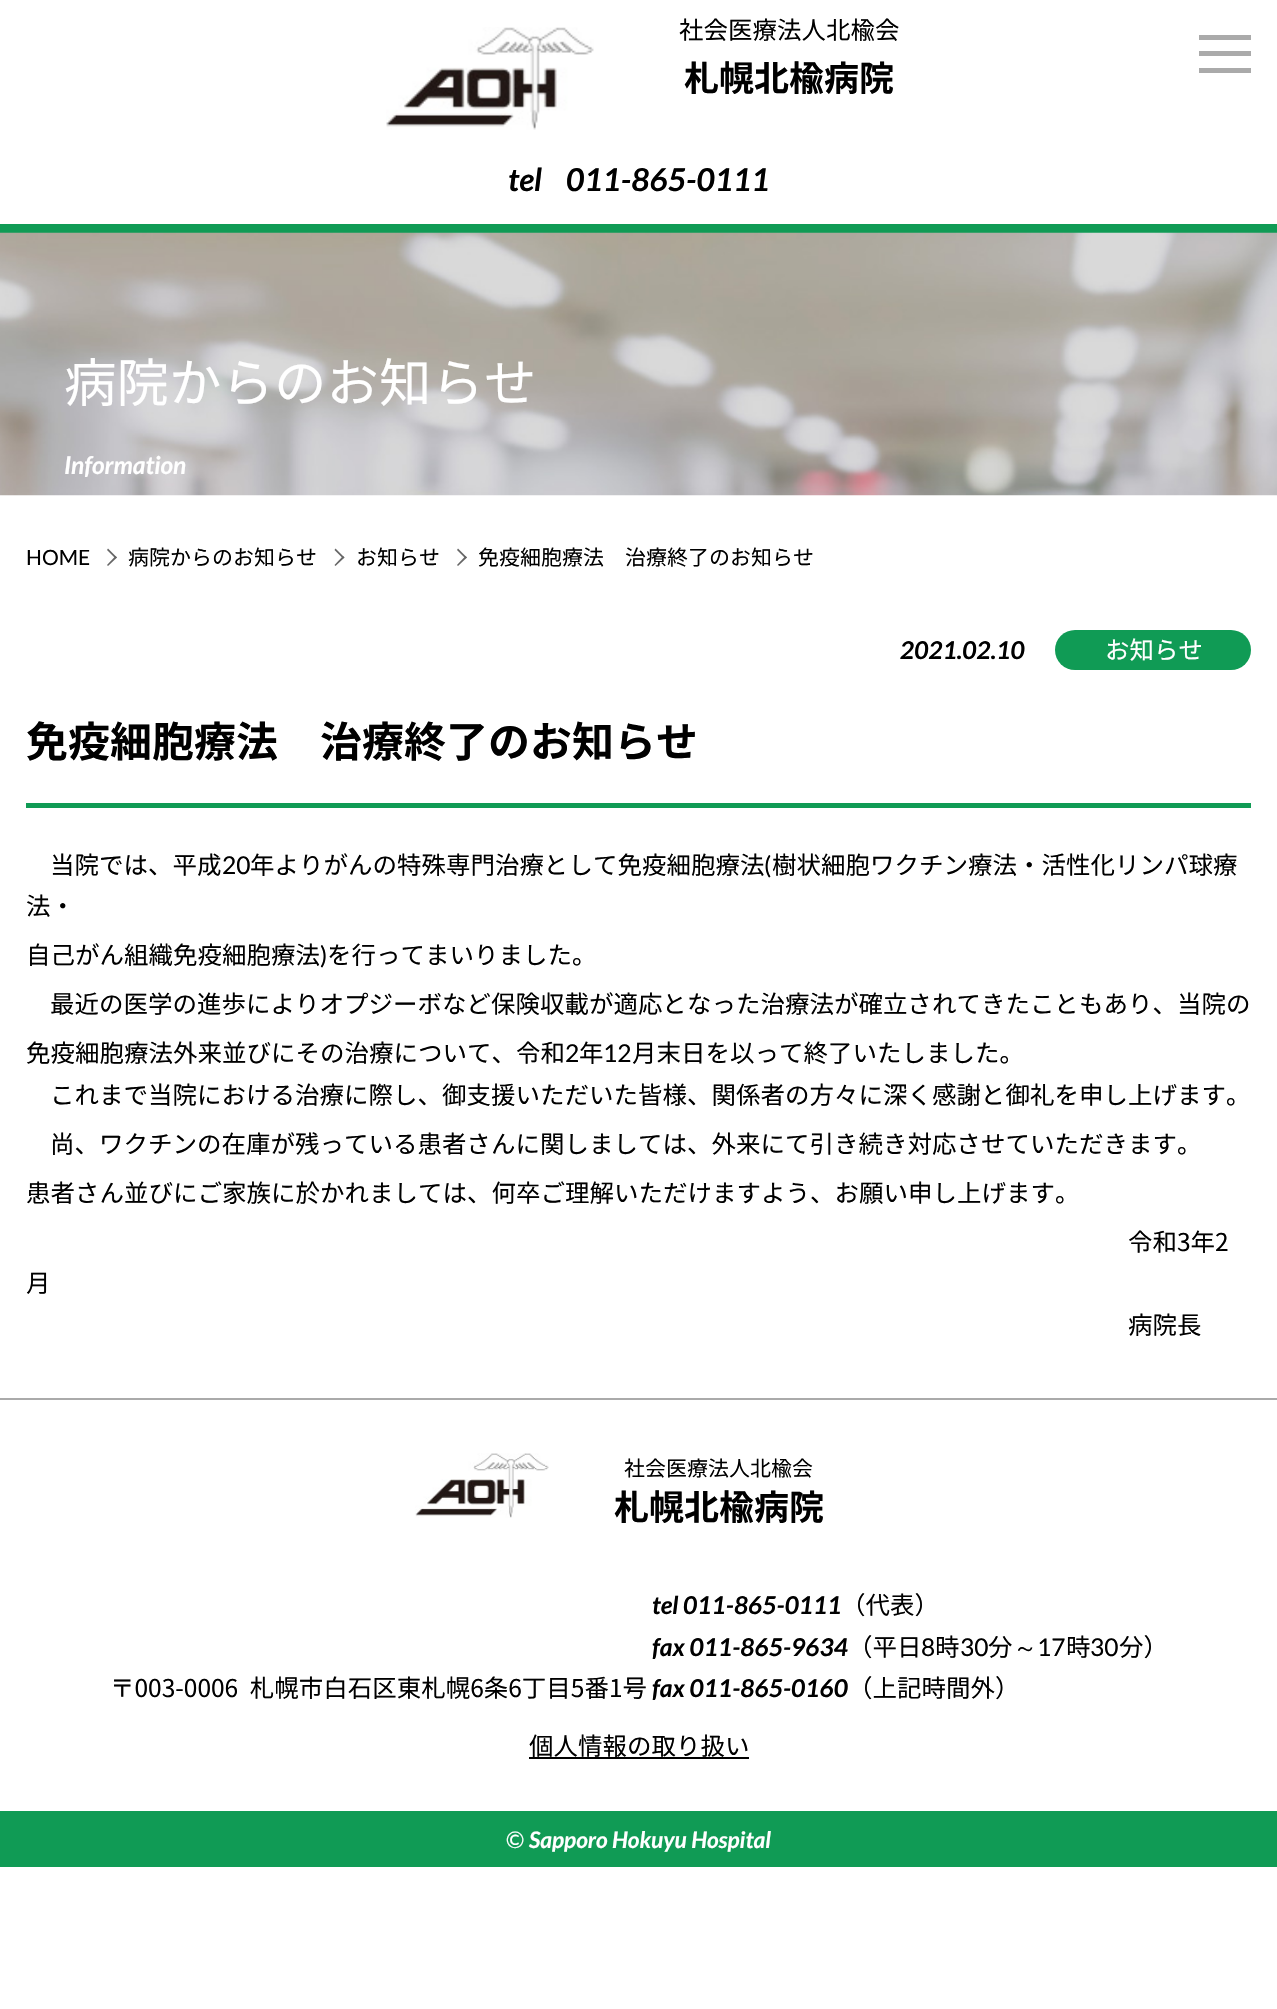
#include "include/core/SkBlurTypes.h"
#include "include/core/SkCanvas.h"
#include "include/core/SkData.h"
#include "include/core/SkFont.h"
#include "include/core/SkFontMgr.h"
#include "include/core/SkImage.h"
#include "include/core/SkMaskFilter.h"
#include "include/core/SkPaint.h"
#include "include/core/SkPathBuilder.h"
#include "include/core/SkTextBlob.h"
#include "include/effects/SkDashPathEffect.h"
#include "include/effects/SkGradientShader.h"
#include "include/utils/SkParsePath.h"

extern sk_sp<SkFontMgr> fontMgr;

void draw(SkCanvas* canvas) {
    SkPaint p;
    p.setAntiAlias(true);
    auto font = [&](const char* family, int weight, float size, bool italic = false) {
        SkFontStyle style(weight, SkFontStyle::kNormal_Width,
            italic ? SkFontStyle::kItalic_Slant : SkFontStyle::kUpright_Slant);
        SkFont result(fontMgr->matchFamilyStyle(family, style), size);
        result.setSubpixel(true);
        return result;
    };
    auto drawTracked = [&](const char* s, float x, float y, const SkFont& font, const SkPaint& ink, float letter, float word) {
        std::vector<SkGlyphID> glyphs(font.countText(s, strlen(s), SkTextEncoding::kUTF8));
        std::vector<float> xs(glyphs.size());
        font.textToGlyphs(s, strlen(s), SkTextEncoding::kUTF8, glyphs);
        font.getXPos(glyphs, xs, x);
        float extra = 0;
        for (size_t i = 0; i < glyphs.size(); i++) {
            xs[i] += extra;
            extra += letter + word * (glyphs[i] == font.unicharToGlyph(' '));
        }
        canvas->drawTextBlob(SkTextBlob::MakeFromPosHGlyphs(glyphs, xs, y, font), 0, 0, ink);
    };
    auto drawPhoto = [&](const char* path, float l, float t, float r, float b) {
        auto image = SkImages::DeferredFromEncodedData(SkData::MakeFromFileName(path));
        canvas->drawImageRect(image, SkRect::MakeLTRB(l, t, r, b), SkSamplingOptions());
    };
    canvas->clear(0xFFFFFFFF);
    p.setColor(0xFF109B55);
    canvas->drawRect(SkRect::MakeLTRB(0, 224, 1277, 233), p);
    drawPhoto("media/1.png", 386, 27, 594, 130);
    auto font1 = font("Noto Sans JP", 400, 24.5f);
    p.setColor(0xFF000000);
    canvas->drawString("社会医療法人北楡会", 679, 39, font1, p);
    auto font2 = font("Noto Sans JP", 700, 35);
    canvas->drawString("札幌北楡病院", 684, 91, font2, p);
    {
        const struct { float l, t, r, b; SkColor color; } items[] = {
            {1199, 51, 1251, 56, 0xFFAAAAAA},
            {1199, 35, 1251, 40, 0xFFAAAAAA},
            {1199, 68, 1251, 73, 0xFFAAAAAA},
        };
        for (auto [l, t, r, b, color] : items) {
            p.setColor(color);
            canvas->drawRect(SkRect::MakeLTRB(l, t, r, b), p);
        }
    }
    auto font3 = font("Lato", 700, 31.5f, true);
    p.setColor(0xFF000000);
    canvas->drawString("tel", 508, 191, font3, p);
    canvas->drawString("011-865-0111", 566, 191, font3, p);
    drawPhoto("media/2.png", 0, 232, 1277, 496);
    auto font4 = font("Noto Sans JP", 400, 52.5f);
    p.setColor(0xFFFFFFFF);
    canvas->drawString("病院からのお知らせ", 64, 402, font4, p);
    auto font5 = font("Lato", 700, 24.5f, true);
    canvas->drawString("Information", 64, 474, font5, p);
    auto font6 = font("Lato", 400, 21);
    p.setColor(0xFF000000);
    canvas->drawString("HOME", 26, 565, font6, p);
    p.setColor(0xFF666666);
    canvas->drawPath(SkPathBuilder().moveTo(107, 550).lineTo(108, 548.5f).lineTo(117, 557.5f).lineTo(115.5f, 558.5f).close().detach(), p);
    canvas->drawPath(SkPathBuilder().moveTo(107, 565).lineTo(115.5f, 556).lineTo(117, 557.5f).lineTo(108, 566).close().detach(), p);
    auto font7 = font("Noto Sans JP", 400, 21);
    p.setColor(0xFF000000);
    canvas->drawString("病院からのお知らせ", 128, 565, font7, p);
    p.setColor(0xFF666666);
    canvas->drawPath(SkPathBuilder().moveTo(334.5f, 550).lineTo(335.5f, 548.5f).lineTo(344.5f, 557.5f).lineTo(343, 558.5f).close().detach(), p);
    canvas->drawPath(SkPathBuilder().moveTo(334.5f, 565).lineTo(343, 556).lineTo(344.5f, 557.5f).lineTo(335.5f, 566).close().detach(), p);
    p.setColor(0xFF000000);
    canvas->drawString("お知らせ", 356, 565, font7, p);
    p.setColor(0xFF666666);
    canvas->drawPath(SkPathBuilder().moveTo(457, 550).lineTo(458, 548.5f).lineTo(467, 557.5f).lineTo(465.5f, 558.5f).close().detach(), p);
    canvas->drawPath(SkPathBuilder().moveTo(457, 565).lineTo(465.5f, 556).lineTo(467, 557.5f).lineTo(458, 566).close().detach(), p);
    p.setColor(0xFF000000);
    canvas->drawString("免疫細胞療法　治療終了のお知らせ", 478, 565, font7, p);
    canvas->drawString("2021.02.10", 900, 659, font5, p);
    p.setColor(0xFF109B55);
    canvas->drawRoundRect(SkRect::MakeLTRB(1055, 630, 1251, 670), 20, 20, p);
    p.setColor(0xFFFFFFFF);
    canvas->drawString("お知らせ", 1105, 659, font1, p);
    p.setColor(0xFF109B55);
    canvas->drawRect(SkRect::MakeLTRB(26, 803, 1251, 808), p);
    auto font8 = font("Noto Sans JP", 700, 42);
    p.setColor(0xFF000000);
    canvas->drawString("免疫細胞療法　治療終了のお知らせ", 26, 757, font8, p);
    canvas->drawString("当院では、平成", 50, 874, font1, p);
    auto font9 = font("Lato", 400, 24.5f);
    canvas->drawString("20", 222, 874, font9, p);
    canvas->drawString("年よりがんの特殊専門治療として免疫細胞療法", 250, 874, font1, p);
    canvas->drawString("(", 764, 874, font9, p);
    {
        const struct { const char* s; float x, y; } items[] = {
            {"樹状細胞ワクチン療法・活性化リンパ球療", 772, 874},
            {"法・", 26, 915},
            {"自己がん組織免疫細胞療法", 26, 964},
        };
        for (auto [s, x, y] : items) {
            canvas->drawString(s, x, y, font1, p);
        }
    }
    canvas->drawString(")", 320, 964, font9, p);
    {
        const struct { const char* s; float x, y; } items[] = {
            {"を行ってまいりました。", 327, 964},
            {"最近の医学の進歩によりオプジーボなど保険収載が適応となった治療法が確立されてきたこともあり、当院の", 50, 1013},
            {"免疫細胞療法外来並びにその治療について、令和", 26, 1062},
        };
        for (auto [s, x, y] : items) {
            canvas->drawString(s, x, y, font1, p);
        }
    }
    canvas->drawString("2", 565, 1062, font9, p);
    canvas->drawString("年", 579, 1062, font1, p);
    canvas->drawString("12", 603, 1062, font9, p);
    {
        const struct { const char* s; float x, y; } items[] = {
            {"月末日を以って終了いたしました。", 632, 1062},
            {"これまで当院における治療に際し、御支援いただいた皆様、関係者の方々に深く感謝と御礼を申し上げます。", 50, 1104},
            {"尚、ワクチンの在庫が残っている患者さんに関しましては、外来にて引き続き対応させていただきます。", 50, 1153},
            {"患者さん並びにご家族に於かれましては、何卒ご理解いただけますよう、お願い申し上げます。", 26, 1202},
            {"令和3年2", 1128, 1251},
            {"月", 26, 1292},
            {"病院長", 1128, 1334},
        };
        for (auto [s, x, y] : items) {
            canvas->drawString(s, x, y, font1, p);
        }
    }
    p.setColor(0xFFAAAAAA);
    canvas->drawRect(SkRect::MakeLTRB(0, 1398, 1277, 1400), p);
    drawPhoto("media/3.png", 415, 1453, 549, 1518);
    p.setColor(0xFF000000);
    canvas->drawString("社会医療法人北楡会", 624, 1476, font7, p);
    canvas->drawString("札幌北楡病院", 614, 1520, font2, p);
    drawTracked("〒003-0006 札幌市白石区東札幌6条6丁目5番1号", 110, 1697, font1, p, 0, 6);
    canvas->drawString("tel 011-865-0111", 652, 1614, font5, p);
    canvas->drawString("（代表）", 841, 1614, font1, p);
    canvas->drawString("fax 011-865-9634", 652, 1656, font5, p);
    canvas->drawString("（平日", 848, 1656, font1, p);
    canvas->drawString("8", 921, 1656, font9, p);
    canvas->drawString("時", 935, 1656, font1, p);
    canvas->drawString("30", 960, 1656, font9, p);
    canvas->drawString("分", 988, 1656, font1, p);
    auto font10 = font("WenQuanYi Zen Hei", 500, 24.5f);
    canvas->drawString("～", 1013, 1656, font10, p);
    canvas->drawString("17", 1037, 1656, font9, p);
    canvas->drawString("時", 1066, 1656, font1, p);
    canvas->drawString("30", 1090, 1656, font9, p);
    canvas->drawString("分）", 1119, 1656, font1, p);
    canvas->drawString("fax 011-865-0160", 652, 1697, font5, p);
    canvas->drawString("（上記時間外）", 848, 1697, font1, p);
    canvas->drawString("個人情報の取り扱い", 529, 1755, font1, p);
    canvas->drawRect(SkRect::MakeLTRB(529, 1757, 749, 1759), p);
    p.setColor(0xFF109B55);
    canvas->drawRect(SkRect::MakeLTRB(0, 1811, 1277, 1867), p);
    auto font11 = font("Lato", 400, 22.75f);
    p.setColor(0xFFFFFFFF);
    canvas->drawString("©", 506, 1848, font11, p);
    auto font12 = font("Lato", 700, 22.75f, true);
    canvas->drawString("Sapporo Hokuyu Hospital", 529, 1848, font12, p);
}
